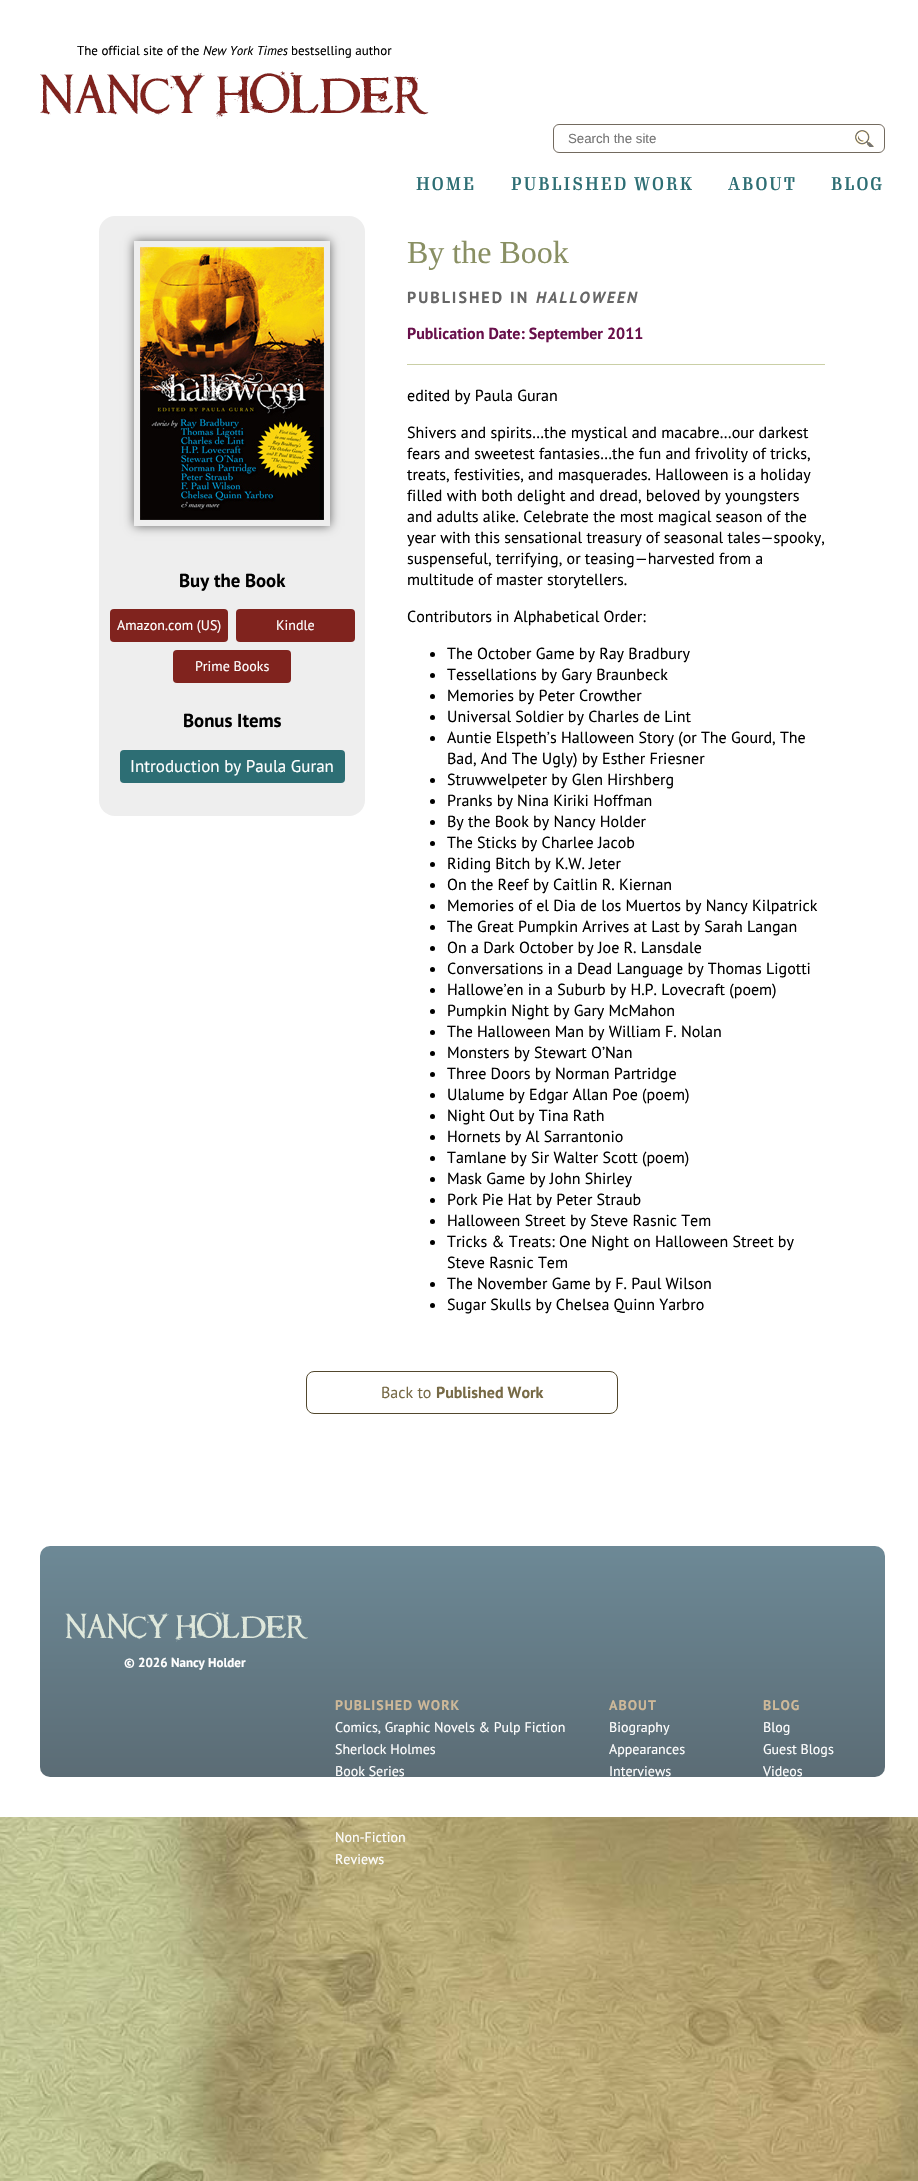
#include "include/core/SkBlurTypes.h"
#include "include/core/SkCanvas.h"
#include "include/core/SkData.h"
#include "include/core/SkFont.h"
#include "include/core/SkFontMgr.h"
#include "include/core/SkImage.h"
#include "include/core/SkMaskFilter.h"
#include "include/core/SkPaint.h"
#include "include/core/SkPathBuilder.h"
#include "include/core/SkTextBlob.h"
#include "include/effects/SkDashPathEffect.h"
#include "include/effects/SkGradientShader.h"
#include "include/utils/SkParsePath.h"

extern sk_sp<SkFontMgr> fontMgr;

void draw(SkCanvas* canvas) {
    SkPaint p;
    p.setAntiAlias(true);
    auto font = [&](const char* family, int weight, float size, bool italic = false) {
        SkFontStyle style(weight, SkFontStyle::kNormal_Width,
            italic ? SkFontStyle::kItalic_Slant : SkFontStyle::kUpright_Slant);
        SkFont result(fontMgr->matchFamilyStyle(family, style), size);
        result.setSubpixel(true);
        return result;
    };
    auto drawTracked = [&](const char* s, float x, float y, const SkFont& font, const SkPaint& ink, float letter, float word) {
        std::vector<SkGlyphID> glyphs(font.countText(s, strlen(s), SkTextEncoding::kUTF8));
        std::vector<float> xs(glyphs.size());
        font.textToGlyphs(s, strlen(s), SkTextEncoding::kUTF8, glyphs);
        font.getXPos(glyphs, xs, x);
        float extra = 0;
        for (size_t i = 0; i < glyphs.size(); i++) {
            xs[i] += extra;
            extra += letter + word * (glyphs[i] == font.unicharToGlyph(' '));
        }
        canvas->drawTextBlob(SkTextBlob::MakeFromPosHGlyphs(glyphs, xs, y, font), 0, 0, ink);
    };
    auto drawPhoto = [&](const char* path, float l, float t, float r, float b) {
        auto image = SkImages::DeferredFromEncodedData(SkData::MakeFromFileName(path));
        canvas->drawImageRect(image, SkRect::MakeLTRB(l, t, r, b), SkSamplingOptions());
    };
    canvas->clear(0xFFFFFFFF);
    drawPhoto("media/1.png", 0, 1817, 918, 2181);
    auto font1 = font("PT Sans", 400, 13);
    p.setColor(0xFF000000);
    canvas->drawString("The official site of the", 77, 55, font1, p);
    auto font2 = font("PT Sans", 400, 13, true);
    canvas->drawString("New York Times", 203, 55, font2, p);
    canvas->drawString("bestselling author", 291, 55, font1, p);
    drawPhoto("media/2.png", 40, 71, 429, 119);
    p.setStyle(SkPaint::kStroke_Style);
    p.setStrokeWidth(1);
    p.setColor(0xFF736A5F);
    canvas->drawRoundRect(SkRect::MakeLTRB(553.5f, 124.5f, 884.5f, 152.5f), 5.5f, 5.5f, p);
    auto font3 = font("Liberation Sans", 400, 13.25f);
    p.setStyle(SkPaint::kFill_Style);
    p.setColor(0xFF757575);
    canvas->drawString("Search the site", 568, 143, font3, p);
    drawPhoto("media/3.png", 855, 130, 874, 147);
    auto font4 = font("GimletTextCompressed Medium", 500, 18);
    p.setColor(0xFF2D6E74);
    {
        const struct { const char* s; float x, y; } items[] = {
            {"HOME", 416, 190},
            {"PUBLISHED WORK", 511, 190},
            {"ABOUT", 728, 190},
            {"BLOG", 831, 190},
        };
        for (auto [s, x, y] : items) {
            drawTracked(s, x, y, font4, p, 2, 0);
        }
    }
    p.setColor(0xFFEEEEEE);
    canvas->drawRoundRect(SkRect::MakeLTRB(99, 216, 365, 816), 16, 16, p);
    canvas->save();
    canvas->clipPath(SkPathBuilder(SkPathFillType::kEvenOdd).moveTo(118, 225).lineTo(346, 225).lineTo(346, 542).lineTo(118, 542).close().moveTo(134, 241).lineTo(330, 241).lineTo(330, 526).lineTo(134, 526).close().detach(), true);
    p.setColor(0xFF666666);
    p.setMaskFilter(SkMaskFilter::MakeBlur(kNormal_SkBlurStyle, 5));
    canvas->drawRect(SkRect::MakeLTRB(134, 241, 330, 526), p);
    p.setMaskFilter(nullptr);
    canvas->restore();
    drawPhoto("media/4.png", 140, 247, 324, 520);
    auto font5 = font("PT Sans", 700, 18.75f);
    p.setColor(0xFF000000);
    canvas->drawString("Buy the Book", 179, 587, font5, p);
    p.setColor(0xFF80231E);
    canvas->drawRoundRect(SkRect::MakeLTRB(110, 609, 228, 642), 4, 4, p);
    auto font6 = font("PT Sans", 400, 14);
    p.setColor(0xFFFFFFFF);
    canvas->drawString("Amazon.com (US)", 117, 630, font6, p);
    p.setColor(0xFF80231E);
    canvas->drawRoundRect(SkRect::MakeLTRB(236, 609, 355, 642), 4, 4, p);
    p.setColor(0xFFFFFFFF);
    canvas->drawString("Kindle", 276, 630, font6, p);
    p.setColor(0xFF80231E);
    canvas->drawRoundRect(SkRect::MakeLTRB(173, 650, 291, 683), 4, 4, p);
    p.setColor(0xFFFFFFFF);
    canvas->drawString("Prime Books", 195, 671, font6, p);
    p.setColor(0xFF000000);
    canvas->drawString("Bonus Items", 183, 727, font5, p);
    p.setColor(0xFF2D6E74);
    canvas->drawRoundRect(SkRect::MakeLTRB(120, 750, 345, 783), 4, 4, p);
    auto font7 = font("PT Sans", 400, 17);
    p.setColor(0xFFFFFFFF);
    canvas->drawString("Introduction by Paula Guran", 130, 772, font7, p);
    auto font8 = font("Liberation Serif", 400, 32);
    p.setColor(0xFF898F63);
    canvas->drawString("By the Book", 407, 263, font8, p);
    auto font9 = font("PT Sans", 700, 16);
    p.setColor(0xFF666666);
    drawTracked("PUBLISHED IN", 407, 303, font9, p, 2, 0);
    auto font10 = font("PT Sans", 700, 16, true);
    drawTracked("HALLOWEEN", 536, 303, font10, p, 2, 0);
    p.setColor(0xFFCACFA6);
    canvas->drawRect(SkRect::MakeLTRB(407, 364, 825, 365), p);
    p.setColor(0xFF68104B);
    canvas->drawString("Publication Date: September 2011", 407, 339, font9, p);
    auto font11 = font("PT Sans", 400, 16);
    p.setColor(0xFF000000);
    {
        const struct { const char* s; float x, y; } items[] = {
            {"edited by Paula Guran", 407, 401},
            {"Shivers and spirits…the mystical and macabre…our darkest", 407, 438},
            {"fears and sweetest fantasies…the fun and frivolity of tricks,", 407, 459},
            {"treats, festivities, and masquerades. Halloween is a holiday", 407, 480},
            {"filled with both delight and dread, beloved by youngsters", 407, 501},
            {"and adults alike. Celebrate the most magical season of the", 407, 522},
            {"year with this sensational treasury of seasonal tales—spooky,", 407, 543},
            {"suspenseful, terrifying, or teasing—harvested from a", 407, 564},
            {"multitude of master storytellers.", 407, 585},
            {"Contributors in Alphabetical Order:", 407, 622},
        };
        for (auto [s, x, y] : items) {
            canvas->drawString(s, x, y, font11, p);
        }
    }
    canvas->drawCircle(432.5f, 654.5f, 2.5f, p);
    canvas->drawString("The October Game by Ray Bradbury", 447, 659, font11, p);
    canvas->drawCircle(432.5f, 675.5f, 2.5f, p);
    canvas->drawString("Tessellations by Gary Braunbeck", 447, 680, font11, p);
    canvas->drawCircle(432.5f, 696.5f, 2.5f, p);
    canvas->drawString("Memories by Peter Crowther", 447, 701, font11, p);
    canvas->drawCircle(432.5f, 717.5f, 2.5f, p);
    canvas->drawString("Universal Soldier by Charles de Lint", 447, 722, font11, p);
    canvas->drawCircle(432.5f, 738.5f, 2.5f, p);
    canvas->drawString("Auntie Elspeth’s Halloween Story (or The Gourd, The", 447, 743, font11, p);
    canvas->drawString("Bad, And The Ugly) by Esther Friesner", 447, 764, font11, p);
    canvas->drawCircle(432.5f, 780.5f, 2.5f, p);
    canvas->drawString("Struwwelpeter by Glen Hirshberg", 447, 785, font11, p);
    canvas->drawCircle(432.5f, 801.5f, 2.5f, p);
    canvas->drawString("Pranks by Nina Kiriki Hoffman", 447, 806, font11, p);
    canvas->drawCircle(432.5f, 822.5f, 2.5f, p);
    canvas->drawString("By the Book by Nancy Holder", 447, 827, font11, p);
    canvas->drawCircle(432.5f, 843.5f, 2.5f, p);
    canvas->drawString("The Sticks by Charlee Jacob", 447, 848, font11, p);
    canvas->drawCircle(432.5f, 864.5f, 2.5f, p);
    canvas->drawString("Riding Bitch by K.W. Jeter", 447, 869, font11, p);
    canvas->drawCircle(432.5f, 885.5f, 2.5f, p);
    canvas->drawString("On the Reef by Caitlin R. Kiernan", 447, 890, font11, p);
    canvas->drawCircle(432.5f, 906.5f, 2.5f, p);
    canvas->drawString("Memories of el Dia de los Muertos by Nancy Kilpatrick", 447, 911, font11, p);
    canvas->drawCircle(432.5f, 927.5f, 2.5f, p);
    canvas->drawString("The Great Pumpkin Arrives at Last by Sarah Langan", 447, 932, font11, p);
    canvas->drawCircle(432.5f, 948.5f, 2.5f, p);
    canvas->drawString("On a Dark October by Joe R. Lansdale", 447, 953, font11, p);
    canvas->drawCircle(432.5f, 969.5f, 2.5f, p);
    canvas->drawString("Conversations in a Dead Language by Thomas Ligotti", 447, 974, font11, p);
    canvas->drawCircle(432.5f, 990.5f, 2.5f, p);
    canvas->drawString("Hallowe’en in a Suburb by H.P. Lovecraft (poem)", 447, 995, font11, p);
    canvas->drawCircle(432.5f, 1011.5f, 2.5f, p);
    canvas->drawString("Pumpkin Night by Gary McMahon", 447, 1016, font11, p);
    canvas->drawCircle(432.5f, 1032.5f, 2.5f, p);
    canvas->drawString("The Halloween Man by William F. Nolan", 447, 1037, font11, p);
    canvas->drawCircle(432.5f, 1053.5f, 2.5f, p);
    canvas->drawString("Monsters by Stewart O’Nan", 447, 1058, font11, p);
    canvas->drawCircle(432.5f, 1074.5f, 2.5f, p);
    canvas->drawString("Three Doors by Norman Partridge", 447, 1079, font11, p);
    canvas->drawCircle(432.5f, 1095.5f, 2.5f, p);
    canvas->drawString("Ulalume by Edgar Allan Poe (poem)", 447, 1100, font11, p);
    canvas->drawCircle(432.5f, 1116.5f, 2.5f, p);
    canvas->drawString("Night Out by Tina Rath", 447, 1121, font11, p);
    canvas->drawCircle(432.5f, 1137.5f, 2.5f, p);
    canvas->drawString("Hornets by Al Sarrantonio", 447, 1142, font11, p);
    canvas->drawCircle(432.5f, 1158.5f, 2.5f, p);
    canvas->drawString("Tamlane by Sir Walter Scott (poem)", 447, 1163, font11, p);
    canvas->drawCircle(432.5f, 1179.5f, 2.5f, p);
    canvas->drawString("Mask Game by John Shirley", 447, 1184, font11, p);
    canvas->drawCircle(432.5f, 1200.5f, 2.5f, p);
    canvas->drawString("Pork Pie Hat by Peter Straub", 447, 1205, font11, p);
    canvas->drawCircle(432.5f, 1221.5f, 2.5f, p);
    canvas->drawString("Halloween Street by Steve Rasnic Tem", 447, 1226, font11, p);
    canvas->drawCircle(432.5f, 1242.5f, 2.5f, p);
    canvas->drawString("Tricks & Treats: One Night on Halloween Street by", 447, 1247, font11, p);
    canvas->drawString("Steve Rasnic Tem", 447, 1268, font11, p);
    canvas->drawCircle(432.5f, 1284.5f, 2.5f, p);
    canvas->drawString("The November Game by F. Paul Wilson", 447, 1289, font11, p);
    canvas->drawCircle(432.5f, 1305.5f, 2.5f, p);
    canvas->drawString("Sugar Skulls by Chelsea Quinn Yarbro", 447, 1310, font11, p);
    p.setStyle(SkPaint::kStroke_Style);
    p.setColor(0xFF52482D);
    canvas->drawRoundRect(SkRect::MakeLTRB(306.5f, 1371.5f, 617.5f, 1413.5f), 7.5f, 7.5f, p);
    p.setStyle(SkPaint::kFill_Style);
    p.setColor(0xFF776A46);
    canvas->drawString("Back to", 381, 1398, font11, p);
    canvas->drawString("Published Work", 436, 1398, font9, p);
    {
        const SkColor colors[] = {0xFF6D8996, 0xFF5B6C75};
        const float stops[] = {0, 1};
        const SkPoint ends[] = {{463, 1546}, {463, 1777}};
        p.setShader(SkGradientShader::MakeLinear(ends, colors, stops, 2, SkTileMode::kClamp));
        p.setAlpha(255);
    }
    canvas->drawRoundRect(SkRect::MakeLTRB(40, 1546, 885, 1777), 10, 10, p);
    drawPhoto("media/5.png", 65, 1612, 308, 1642);
    auto font12 = font("PT Sans", 700, 13);
    p.setShader(nullptr);
    p.setColor(0xFFFFFFFF);
    canvas->drawString("© 2026 Nancy Holder", 124, 1667, font12, p);
    auto font13 = font("PT Sans", 700, 14);
    p.setColor(0xFFCEB999);
    drawTracked("PUBLISHED WORK", 335, 1710, font13, p, 1, 0);
    p.setColor(0xFFFFFFFF);
    {
        const struct { const char* s; float x, y; } items[] = {
            {"Comics, Graphic Novels & Pulp Fiction", 335, 1732},
            {"Sherlock Holmes", 335, 1754},
            {"Book Series", 335, 1776},
            {"Non-Fiction", 335, 1842},
            {"Reviews", 335, 1864},
        };
        for (auto [s, x, y] : items) {
            canvas->drawString(s, x, y, font6, p);
        }
    }
    p.setColor(0xFFCEB999);
    drawTracked("ABOUT", 609, 1710, font13, p, 1, 0);
    p.setColor(0xFFFFFFFF);
    {
        const struct { const char* s; float x, y; } items[] = {
            {"Biography", 609, 1732},
            {"Appearances", 609, 1754},
            {"Interviews", 609, 1776},
        };
        for (auto [s, x, y] : items) {
            canvas->drawString(s, x, y, font6, p);
        }
    }
    p.setColor(0xFFCEB999);
    drawTracked("BLOG", 763, 1710, font13, p, 1, 0);
    p.setColor(0xFFFFFFFF);
    {
        const struct { const char* s; float x, y; } items[] = {
            {"Blog", 763, 1732},
            {"Guest Blogs", 763, 1754},
            {"Videos", 763, 1776},
        };
        for (auto [s, x, y] : items) {
            canvas->drawString(s, x, y, font6, p);
        }
    }
}
